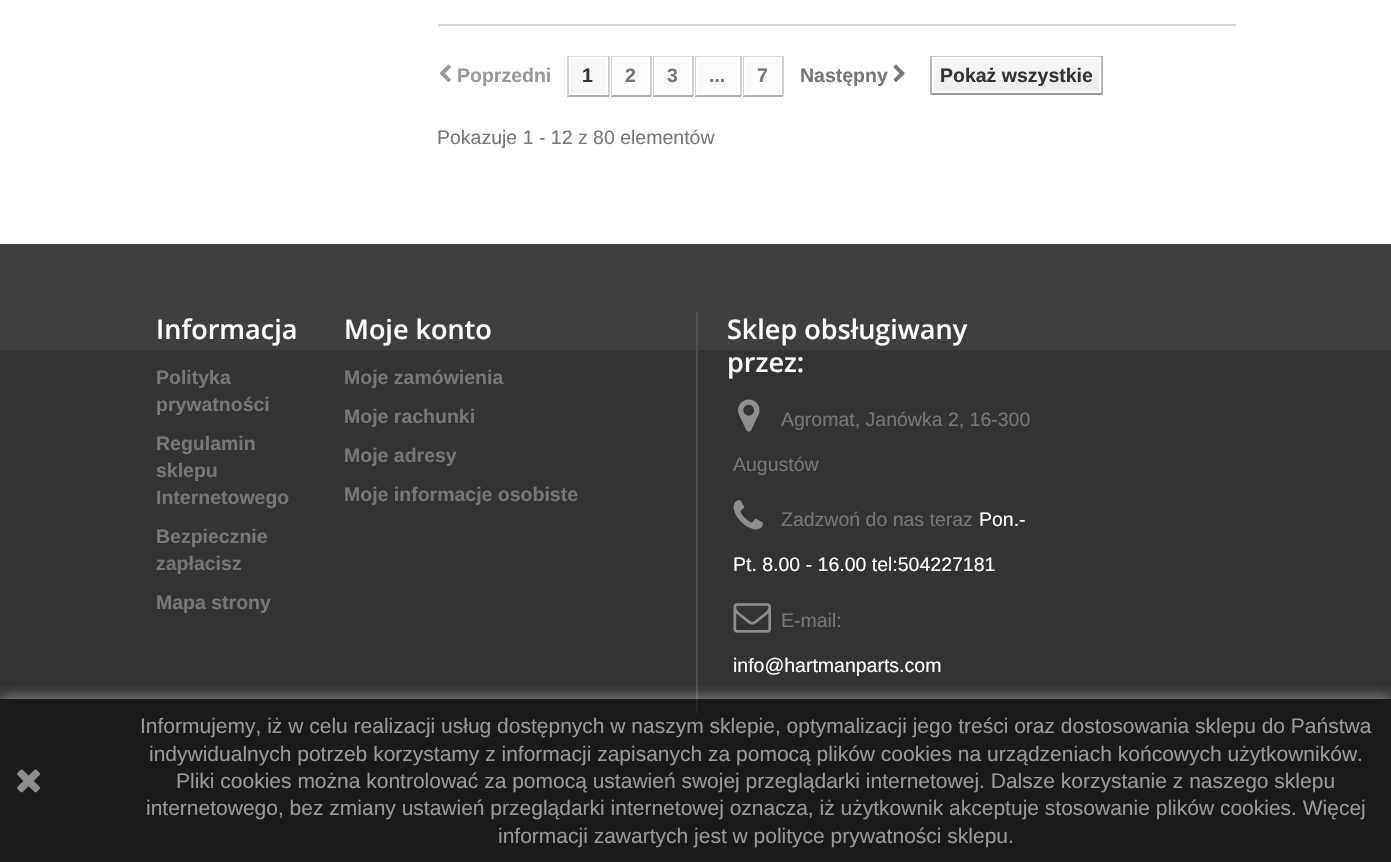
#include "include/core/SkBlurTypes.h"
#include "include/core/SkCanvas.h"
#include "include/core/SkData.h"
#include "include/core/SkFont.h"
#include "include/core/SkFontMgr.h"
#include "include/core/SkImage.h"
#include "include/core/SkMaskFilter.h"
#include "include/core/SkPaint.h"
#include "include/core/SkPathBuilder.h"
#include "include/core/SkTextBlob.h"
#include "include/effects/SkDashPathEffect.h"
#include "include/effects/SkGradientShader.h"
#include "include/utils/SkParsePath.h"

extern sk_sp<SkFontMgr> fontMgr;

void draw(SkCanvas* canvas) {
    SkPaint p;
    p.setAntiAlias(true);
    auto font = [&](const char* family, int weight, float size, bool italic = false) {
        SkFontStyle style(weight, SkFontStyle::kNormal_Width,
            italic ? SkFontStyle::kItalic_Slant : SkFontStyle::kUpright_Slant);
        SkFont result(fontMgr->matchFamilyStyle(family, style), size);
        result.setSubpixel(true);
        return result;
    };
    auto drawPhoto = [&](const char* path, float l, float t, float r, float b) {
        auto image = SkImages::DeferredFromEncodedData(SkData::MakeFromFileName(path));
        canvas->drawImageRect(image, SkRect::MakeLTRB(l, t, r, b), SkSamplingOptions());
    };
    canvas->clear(0xFFFFFFFF);
    p.setColor(0xFFD6D4D4);
    canvas->drawRect(SkRect::MakeLTRB(438, 24, 1236, 26), p);
    drawPhoto("media/1.png", 439, 64, 451, 82);
    auto font1 = font("Liberation Sans", 700, 19.5f);
    p.setColor(0xFF999999);
    canvas->drawString("Poprzedni", 457, 82, font1, p);
    {
        const struct { float l, t, r, b; SkColor color; } items[] = {
            {567, 56, 609, 57, 0xFFDFDEDE},
            {608, 56, 610, 96, 0xFFD2D0D0},
            {567, 95, 609, 97, 0xFFB0AFAF},
            {567, 56, 569, 96, 0xFFD2D0D0},
            {571, 59, 606, 93, 0xFFF6F6F6},
        };
        for (auto [l, t, r, b, color] : items) {
            p.setColor(color);
            canvas->drawRect(SkRect::MakeLTRB(l, t, r, b), p);
        }
    }
    p.setColor(0xFF333333);
    canvas->drawString("1", 582, 82, font1, p);
    {
        const struct { float l, t, r, b; SkColor color; } items[] = {
            {611, 56, 651, 57, 0xFFDFDEDE},
            {650, 56, 652, 96, 0xFFD2D0D0},
            {611, 95, 651, 97, 0xFFB0AFAF},
            {611, 56, 613, 96, 0xFFD2D0D0},
        };
        for (auto [l, t, r, b, color] : items) {
            p.setColor(color);
            canvas->drawRect(SkRect::MakeLTRB(l, t, r, b), p);
        }
    }
    p.setColor(0xFFFBFBFB);
    canvas->drawRect(SkRect::MakeLTRB(613, 58, 649, 94), p);
    p.setStyle(SkPaint::kStroke_Style);
    p.setStrokeWidth(2);
    p.setColor(0xFFFFFFFF);
    canvas->drawRect(SkRect::MakeLTRB(613, 58, 649, 94), p);
    p.setStyle(SkPaint::kFill_Style);
    p.setColor(0xFF777777);
    canvas->drawString("2", 625, 82, font1, p);
    {
        const struct { float l, t, r, b; SkColor color; } items[] = {
            {653, 56, 693, 57, 0xFFDFDEDE},
            {692, 56, 694, 96, 0xFFD2D0D0},
            {653, 95, 693, 97, 0xFFB0AFAF},
            {653, 56, 655, 96, 0xFFD2D0D0},
        };
        for (auto [l, t, r, b, color] : items) {
            p.setColor(color);
            canvas->drawRect(SkRect::MakeLTRB(l, t, r, b), p);
        }
    }
    p.setColor(0xFFFBFBFB);
    canvas->drawRect(SkRect::MakeLTRB(655, 58, 691, 94), p);
    p.setStyle(SkPaint::kStroke_Style);
    p.setColor(0xFFFFFFFF);
    canvas->drawRect(SkRect::MakeLTRB(655, 58, 691, 94), p);
    p.setStyle(SkPaint::kFill_Style);
    p.setColor(0xFF777777);
    canvas->drawString("3", 667, 82, font1, p);
    {
        const struct { float l, t, r, b; SkColor color; } items[] = {
            {695, 56, 741, 57, 0xFFDFDEDE},
            {740, 56, 742, 96, 0xFFD2D0D0},
            {695, 95, 741, 97, 0xFFB0AFAF},
            {695, 56, 697, 96, 0xFFD2D0D0},
        };
        for (auto [l, t, r, b, color] : items) {
            p.setColor(color);
            canvas->drawRect(SkRect::MakeLTRB(l, t, r, b), p);
        }
    }
    p.setColor(0xFFFBFBFB);
    canvas->drawRect(SkRect::MakeLTRB(697, 58, 739, 94), p);
    p.setStyle(SkPaint::kStroke_Style);
    p.setColor(0xFFFFFFFF);
    canvas->drawRect(SkRect::MakeLTRB(697, 58, 739, 94), p);
    p.setStyle(SkPaint::kFill_Style);
    p.setColor(0xFF777777);
    canvas->drawString("...", 709, 82, font1, p);
    {
        const struct { float l, t, r, b; SkColor color; } items[] = {
            {743, 56, 783, 57, 0xFFDFDEDE},
            {782, 56, 784, 96, 0xFFD2D0D0},
            {743, 95, 783, 97, 0xFFB0AFAF},
            {743, 56, 745, 96, 0xFFD2D0D0},
        };
        for (auto [l, t, r, b, color] : items) {
            p.setColor(color);
            canvas->drawRect(SkRect::MakeLTRB(l, t, r, b), p);
        }
    }
    p.setColor(0xFFFBFBFB);
    canvas->drawRect(SkRect::MakeLTRB(745, 58, 781, 94), p);
    p.setStyle(SkPaint::kStroke_Style);
    p.setColor(0xFFFFFFFF);
    canvas->drawRect(SkRect::MakeLTRB(745, 58, 781, 94), p);
    p.setStyle(SkPaint::kFill_Style);
    p.setColor(0xFF777777);
    canvas->drawString("7", 757, 82, font1, p);
    canvas->drawString("Następny", 800, 82, font1, p);
    drawPhoto("media/2.png", 893, 64, 905, 82);
    {
        const struct { float l, t, r, b; SkColor color; } items[] = {
            {930, 56, 1103, 57, 0xFFCACACA},
            {1101, 56, 1103, 95, 0xFFB7B7B7},
            {930, 93, 1103, 95, 0xFF9A9A9A},
            {930, 56, 932, 95, 0xFFB7B7B7},
        };
        for (auto [l, t, r, b, color] : items) {
            p.setColor(color);
            canvas->drawRect(SkRect::MakeLTRB(l, t, r, b), p);
        }
    }
    {
        const SkColor colors[] = {0xFFF7F7F7, 0xFFEDEDED};
        const float stops[] = {0, 1};
        const SkPoint ends[] = {{1016, 58}, {1016, 92}};
        p.setShader(SkGradientShader::MakeLinear(ends, colors, stops, 2, SkTileMode::kClamp));
        p.setAlpha(255);
    }
    canvas->drawRect(SkRect::MakeLTRB(934, 59, 1099, 91), p);
    p.setShader(nullptr);
    p.setColor(0xFF333333);
    canvas->drawString("Pokaż wszystkie", 940, 82, font1, p);
    auto font2 = font("Liberation Sans", 400, 19.5f);
    p.setColor(0xFF777777);
    canvas->drawString("Pokazuje 1 - 12 z 80 elementów", 437, 144, font2, p);
    {
        const struct { float l, t, r, b; SkColor color; } items[] = {
            {0, 350, 1391, 699, 0xFF333333},
            {0, 699, 1391, 862, 0xFF1A1A1A},
            {0, 244, 1391, 350, 0xFF3F3F3F},
        };
        for (auto [l, t, r, b, color] : items) {
            p.setColor(color);
            canvas->drawRect(SkRect::MakeLTRB(l, t, r, b), p);
        }
    }
    auto font3 = font("Open Sans", 600, 27);
    p.setColor(0xFFFFFFFF);
    canvas->drawString("Informacja", 156, 339, font3, p);
    p.setColor(0xFF777777);
    {
        const struct { const char* s; float x, y; } items[] = {
            {"Polityka", 156, 384},
            {"prywatności", 156, 411},
            {"Regulamin", 156, 450},
            {"sklepu", 156, 477},
            {"Internetowego", 156, 504},
            {"Bezpiecznie", 156, 543},
            {"zapłacisz", 156, 570},
            {"Mapa strony", 156, 609},
        };
        for (auto [s, x, y] : items) {
            canvas->drawString(s, x, y, font1, p);
        }
    }
    p.setColor(0xFFFFFFFF);
    canvas->drawString("Moje konto", 344, 339, font3, p);
    p.setColor(0xFF777777);
    {
        const struct { const char* s; float x, y; } items[] = {
            {"Moje zamówienia", 344, 384},
            {"Moje rachunki", 344, 423},
            {"Moje adresy", 344, 462},
            {"Moje informacje osobiste", 344, 501},
        };
        for (auto [s, x, y] : items) {
            canvas->drawString(s, x, y, font1, p);
        }
    }
    p.setColor(0xFF515151);
    canvas->drawRect(SkRect::MakeLTRB(696, 312, 698, 699), p);
    p.setColor(0xFF292929);
    canvas->drawRect(SkRect::MakeLTRB(696, 699, 698, 713), p);
    p.setColor(0xFFFFFFFF);
    canvas->drawString("Sklep obsługiwany", 727, 339, font3, p);
    canvas->drawString("przez:", 727, 372, font3, p);
    drawPhoto("media/3.png", 738, 399, 760, 432);
    p.setColor(0xFF777777);
    canvas->drawString("Agromat, Janówka 2, 16-300", 781, 426, font2, p);
    canvas->drawString("Augustów", 733, 471, font2, p);
    drawPhoto("media/4.png", 733, 500, 763, 530);
    canvas->drawString("Zadzwoń do nas teraz", 781, 526, font2, p);
    p.setColor(0xFFFFFFFF);
    canvas->drawString("Pon.-", 979, 526, font2, p);
    canvas->drawString("Pt. 8.00 - 16.00 tel:504227181", 733, 571, font2, p);
    drawPhoto("media/5.png", 733, 603, 771, 633);
    p.setColor(0xFF777777);
    canvas->drawString("E-mail:", 781, 627, font2, p);
    p.setColor(0xFFFFFFFF);
    canvas->drawString("info@hartmanparts.com", 733, 672, font2, p);
    canvas->save();
    canvas->clipRect(SkRect::MakeLTRB(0, 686, 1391, 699));
    p.setColor(0x80FFFFFF);
    p.setMaskFilter(SkMaskFilter::MakeBlur(kNormal_SkBlurStyle, 7.5f));
    canvas->drawRect(SkRect::MakeLTRB(0, 699, 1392, 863), p);
    p.setMaskFilter(nullptr);
    canvas->restore();
    drawPhoto("media/6.png", 17, 769, 40, 793);
    auto font4 = font("Liberation Sans", 400, 21);
    p.setColor(0xFF999999);
    {
        const struct { const char* s; float x, y; } items[] = {
            {"Informujemy, iż w celu realizacji usług dostępnych w naszym sklepie, optymalizacji jego treści oraz dostosowania sklepu do Państwa", 140, 733},
            {"indywidualnych potrzeb korzystamy z informacji zapisanych za pomocą plików cookies na urządzeniach końcowych użytkowników.", 149, 761},
            {"Pliki cookies można kontrolować za pomocą ustawień swojej przeglądarki internetowej. Dalsze korzystanie z naszego sklepu", 176, 788},
            {"internetowego, bez zmiany ustawień przeglądarki internetowej oznacza, iż użytkownik akceptuje stosowanie plików cookies. Więcej", 146, 815},
            {"informacji zawartych jest w polityce prywatności sklepu.", 498, 843},
        };
        for (auto [s, x, y] : items) {
            canvas->drawString(s, x, y, font4, p);
        }
    }
}
